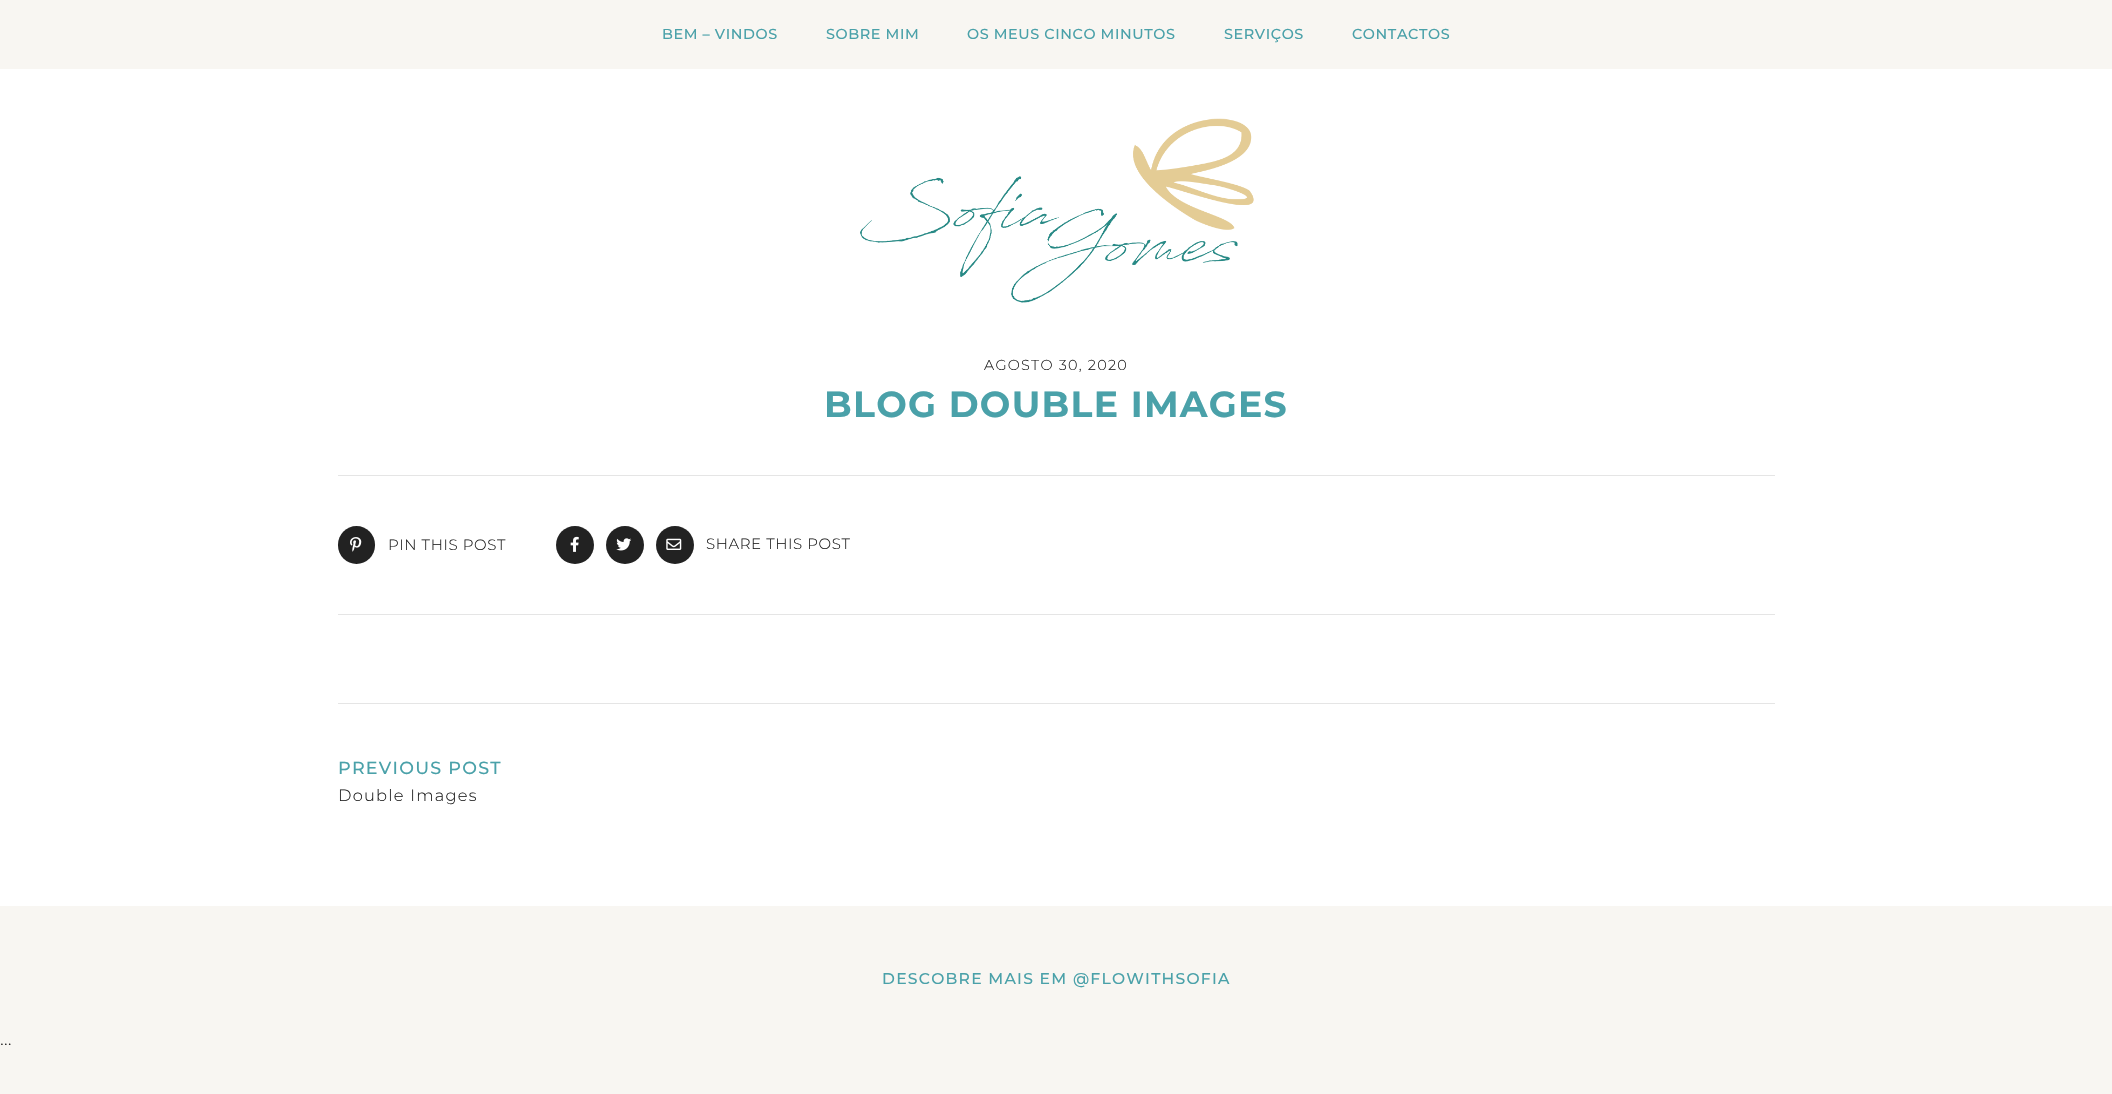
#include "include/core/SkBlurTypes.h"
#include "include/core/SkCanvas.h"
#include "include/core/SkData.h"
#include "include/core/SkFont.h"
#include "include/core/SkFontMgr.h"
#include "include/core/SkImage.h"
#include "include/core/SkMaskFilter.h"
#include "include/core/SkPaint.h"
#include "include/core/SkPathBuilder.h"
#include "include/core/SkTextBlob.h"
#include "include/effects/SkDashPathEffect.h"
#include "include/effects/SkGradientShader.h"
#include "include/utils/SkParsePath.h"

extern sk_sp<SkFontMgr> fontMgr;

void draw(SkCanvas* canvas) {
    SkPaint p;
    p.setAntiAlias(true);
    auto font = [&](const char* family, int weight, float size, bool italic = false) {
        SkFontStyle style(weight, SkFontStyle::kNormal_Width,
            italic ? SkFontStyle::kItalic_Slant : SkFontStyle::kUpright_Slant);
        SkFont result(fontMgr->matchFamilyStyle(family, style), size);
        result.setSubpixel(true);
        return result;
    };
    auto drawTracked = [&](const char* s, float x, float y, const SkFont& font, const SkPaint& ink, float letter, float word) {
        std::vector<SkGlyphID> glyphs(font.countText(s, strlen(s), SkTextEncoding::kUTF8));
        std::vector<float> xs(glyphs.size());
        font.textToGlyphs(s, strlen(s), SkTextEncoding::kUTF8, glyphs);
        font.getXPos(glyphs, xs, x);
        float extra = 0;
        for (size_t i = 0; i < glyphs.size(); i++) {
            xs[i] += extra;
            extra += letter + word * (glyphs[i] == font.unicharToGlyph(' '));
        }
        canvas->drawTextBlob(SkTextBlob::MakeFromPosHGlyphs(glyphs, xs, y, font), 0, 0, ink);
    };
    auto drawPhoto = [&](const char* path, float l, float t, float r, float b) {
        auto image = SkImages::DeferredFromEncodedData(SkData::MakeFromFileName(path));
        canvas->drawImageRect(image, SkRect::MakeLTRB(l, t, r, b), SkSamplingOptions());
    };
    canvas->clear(0xFFFFFFFF);
    p.setColor(0xFFF8F6F2);
    canvas->drawRect(SkRect::MakeLTRB(0, 0, 2112, 69), p);
    auto font1 = font("Montserrat", 500, 14.4f);
    p.setColor(0xFF4AA1A9);
    {
        const struct { const char* s; float x, y; } items[] = {
            {"BEM – VINDOS", 662, 39},
            {"SOBRE MIM", 826, 39},
            {"OS MEUS CINCO MINUTOS", 967, 39},
            {"SERVIÇOS", 1224, 39},
            {"CONTACTOS", 1352, 39},
        };
        for (auto [s, x, y] : items) {
            drawTracked(s, x, y, font1, p, 0.6f, 0);
        }
    }
    drawPhoto("media/1.png", 860, 118, 1254, 303);
    auto font2 = font("Montserrat", 300, 14.4f);
    p.setColor(0xFF222222);
    drawTracked("AGOSTO 30, 2020", 984, 370, font2, p, 1.25f, 0);
    auto font3 = font("Montserrat", 700, 36.25f);
    p.setColor(0xFF4AA1A9);
    drawTracked("BLOG DOUBLE IMAGES", 824, 417, font3, p, 1.25f, 0);
    p.setColor(0xFFE5E5E5);
    canvas->drawRect(SkRect::MakeLTRB(338, 475, 1775, 476), p);
    canvas->drawRect(SkRect::MakeLTRB(338, 614, 1775, 615), p);
    p.setColor(0xFF222222);
    canvas->drawRoundRect(SkRect::MakeLTRB(338, 526, 375, 564), 18.5f, 18.5f, p);
    drawPhoto("media/2.png", 350, 537, 362, 552);
    auto font4 = font("Montserrat", 300, 15);
    drawTracked("PIN THIS POST", 388, 550, font4, p, 0.6f, 0);
    canvas->drawCircle(575, 545, 19, p);
    drawPhoto("media/3.png", 570, 536, 579, 552);
    canvas->drawCircle(625, 545, 19, p);
    drawPhoto("media/4.png", 616, 538, 632, 551);
    canvas->drawCircle(675, 545, 19, p);
    drawPhoto("media/5.png", 666, 538, 682, 550);
    drawTracked("SHARE THIS POST", 706, 549, font4, p, 0.6f, 0);
    p.setColor(0xFFE5E5E5);
    canvas->drawRect(SkRect::MakeLTRB(338, 703, 1775, 704), p);
    auto font5 = font("Montserrat", 500, 17.5f);
    p.setColor(0xFF4AA1A9);
    drawTracked("PREVIOUS POST", 338, 774, font5, p, 1.25f, 0);
    auto font6 = font("Montserrat", 300, 16.25f);
    p.setColor(0xFF222222);
    drawTracked("Double Images", 338, 801, font6, p, 1.25f, 0);
    p.setColor(0xFFF8F6F2);
    canvas->drawRect(SkRect::MakeLTRB(0, 906, 2112, 1094), p);
    auto font7 = font("Montserrat", 500, 15.6f);
    p.setColor(0xFF4AA1A9);
    drawTracked("DESCOBRE MAIS EM @FLOWITHSOFIA", 882, 984, font7, p, 1.25f, 0);
    auto font8 = font("Montserrat", 300, 19);
    p.setColor(0xFF222222);
    drawTracked("…", 0, 1045, font8, p, 0.6f, 0);
}
